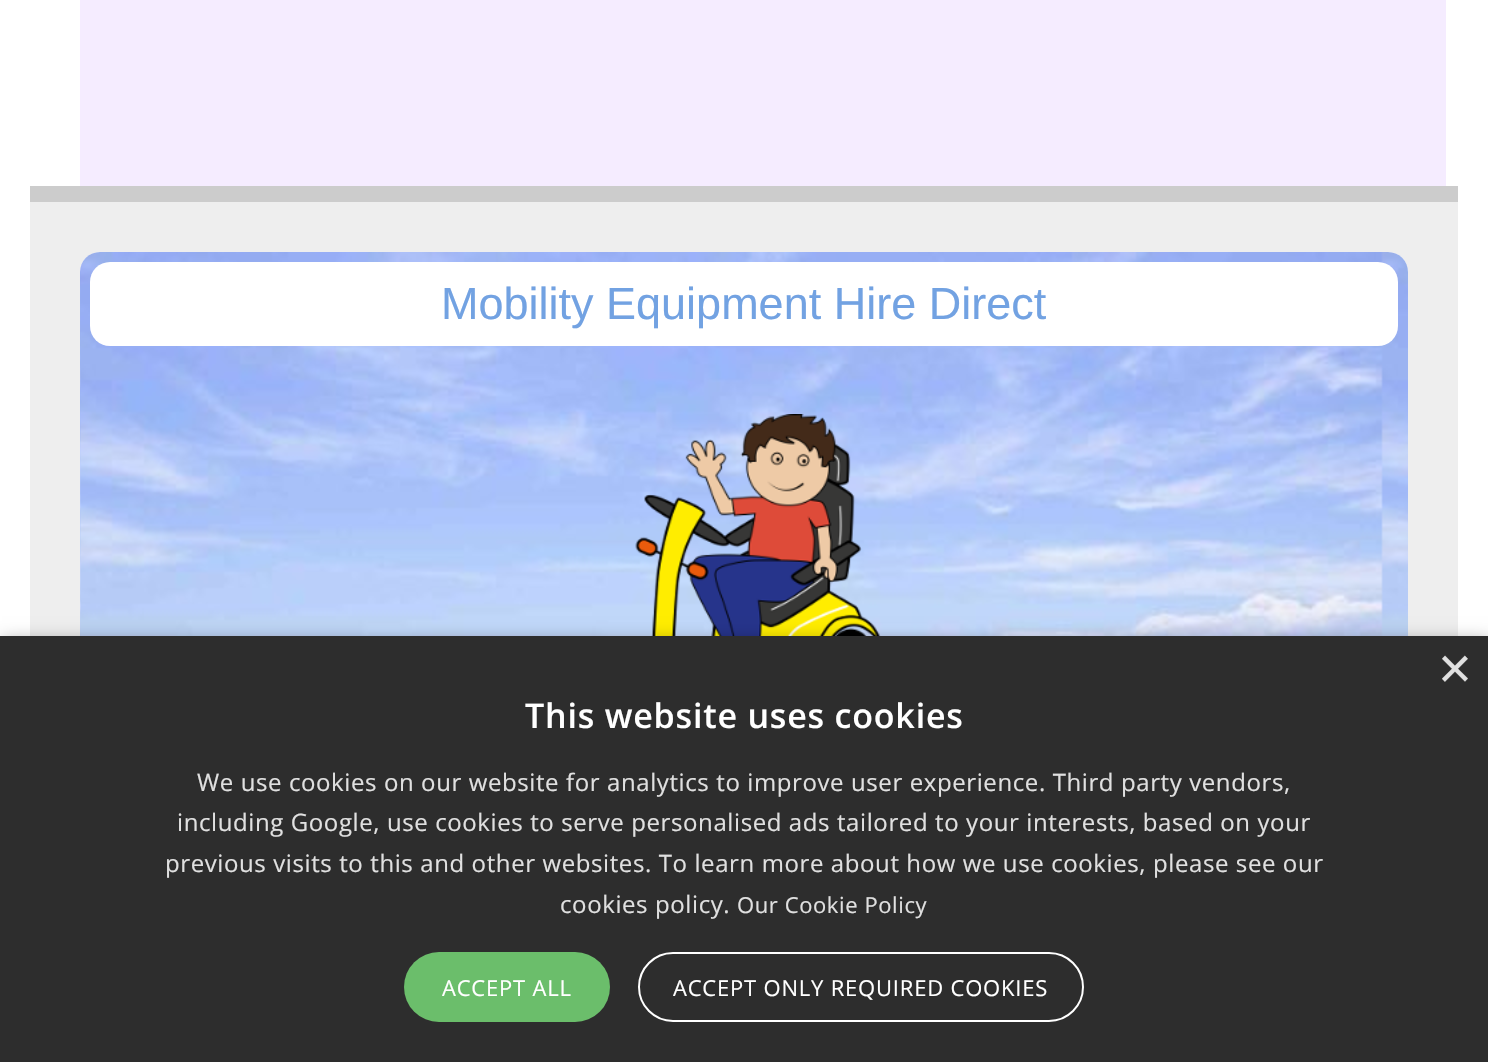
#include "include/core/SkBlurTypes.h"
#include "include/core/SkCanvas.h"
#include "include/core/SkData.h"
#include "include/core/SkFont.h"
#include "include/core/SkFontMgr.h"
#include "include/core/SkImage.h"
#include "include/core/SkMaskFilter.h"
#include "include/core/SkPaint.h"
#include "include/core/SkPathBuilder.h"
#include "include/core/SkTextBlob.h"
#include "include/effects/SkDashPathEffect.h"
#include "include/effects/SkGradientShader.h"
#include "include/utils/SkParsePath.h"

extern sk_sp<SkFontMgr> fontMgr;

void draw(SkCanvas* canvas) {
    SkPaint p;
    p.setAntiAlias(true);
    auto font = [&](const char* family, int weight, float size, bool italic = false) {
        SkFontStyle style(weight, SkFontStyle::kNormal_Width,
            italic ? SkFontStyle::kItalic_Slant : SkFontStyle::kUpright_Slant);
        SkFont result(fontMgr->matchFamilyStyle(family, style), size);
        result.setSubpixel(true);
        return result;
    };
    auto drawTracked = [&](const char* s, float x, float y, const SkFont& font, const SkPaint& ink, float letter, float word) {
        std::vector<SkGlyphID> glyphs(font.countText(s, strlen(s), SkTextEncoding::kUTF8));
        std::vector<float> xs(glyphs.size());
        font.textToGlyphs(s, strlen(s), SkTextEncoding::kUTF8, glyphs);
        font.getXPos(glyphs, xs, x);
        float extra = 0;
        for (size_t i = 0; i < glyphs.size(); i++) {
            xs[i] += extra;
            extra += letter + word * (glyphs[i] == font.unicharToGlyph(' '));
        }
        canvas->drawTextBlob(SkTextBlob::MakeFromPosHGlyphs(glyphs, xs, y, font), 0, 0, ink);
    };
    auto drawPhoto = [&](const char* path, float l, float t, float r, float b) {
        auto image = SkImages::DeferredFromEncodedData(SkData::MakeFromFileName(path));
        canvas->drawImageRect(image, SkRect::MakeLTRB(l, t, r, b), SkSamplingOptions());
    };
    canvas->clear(0xFFFFFFFF);
    {
        const struct { float l, t, r, b; SkColor color; } items[] = {
            {80, 0, 1446, 186, 0xFFF5ECFF},
            {30, 202, 1458, 636, 0xFFEEEEEE},
            {30, 186, 1458, 202, 0xFFCCCCCC},
        };
        for (auto [l, t, r, b, color] : items) {
            p.setColor(color);
            canvas->drawRect(SkRect::MakeLTRB(l, t, r, b), p);
        }
    }
    p.setColor(0xFFFFFFFF);
    canvas->drawRoundRect(SkRect::MakeLTRB(80, 252, 1408, 802), 20, 20, p);
    drawPhoto("media/1.png", 80, 252, 1408, 636);
    canvas->drawRoundRect(SkRect::MakeLTRB(90, 262, 1398, 346), 20, 20, p);
    auto font1 = font("Liberation Sans", 400, 45);
    p.setColor(0xFF72A2E2);
    canvas->drawString("Mobility Equipment Hire Direct", 441, 319, font1, p);
    drawPhoto("media/2.png", 635, 414, 881, 636);
    p.setColor(0x59000000);
    p.setMaskFilter(SkMaskFilter::MakeBlur(kNormal_SkBlurStyle, 8));
    canvas->drawRect(SkRect::MakeLTRB(2, 640, 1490, 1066), p);
    p.setMaskFilter(nullptr);
    p.setColor(0xFF2D2D2D);
    canvas->drawRect(SkRect::MakeLTRB(0, 636, 1488, 1062), p);
    auto font2 = font("Liberation Sans", 400, 58);
    p.setColor(0xFFE0E0E0);
    canvas->drawString("×", 1438, 688, font2, p);
    auto font3 = font("Open Sans", 600, 34);
    p.setColor(0xFFFFFFFF);
    drawTracked("This website uses cookies", 525, 728, font3, p, 0.8f, 0);
    auto font4 = font("Open Sans", 400, 24);
    p.setColor(0xFFE0E0E0);
    {
        const struct { const char* s; float x, y; } items[] = {
            {"We use cookies on our website for analytics to improve user experience. Third party vendors,", 197, 791},
            {"including Google, use cookies to serve personalised ads tailored to your interests, based on your", 177, 831},
            {"previous visits to this and other websites. To learn more about how we use cookies, please see our", 165, 872},
            {"cookies policy.", 560, 913},
        };
        for (auto [s, x, y] : items) {
            drawTracked(s, x, y, font4, p, 0.6f, 0);
        }
    }
    auto font5 = font("Open Sans", 400, 22);
    drawTracked("Our Cookie Policy", 737, 913, font5, p, 0.6f, 0);
    p.setColor(0xFF6BBE6B);
    canvas->drawRoundRect(SkRect::MakeLTRB(404, 952, 610, 1022), 35, 35, p);
    p.setColor(0xFFFFFFFF);
    drawTracked("ACCEPT ALL", 442, 996, font5, p, 0.8f, 0);
    p.setStyle(SkPaint::kStroke_Style);
    p.setStrokeWidth(2);
    canvas->drawRoundRect(SkRect::MakeLTRB(639, 953, 1083, 1021), 34, 34, p);
    p.setStyle(SkPaint::kFill_Style);
    drawTracked("ACCEPT ONLY REQUIRED COOKIES", 673, 996, font5, p, 0.8f, 0);
}
